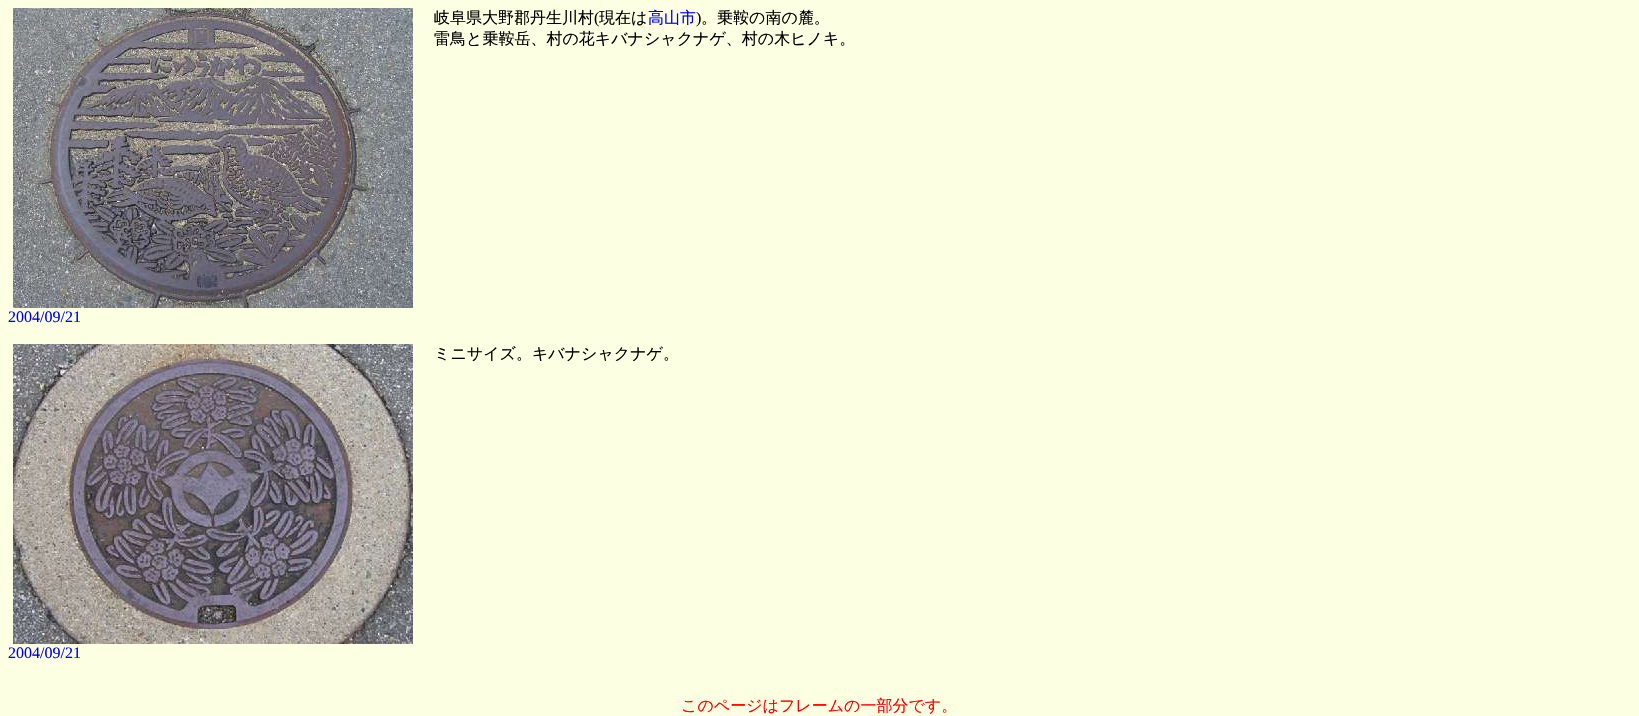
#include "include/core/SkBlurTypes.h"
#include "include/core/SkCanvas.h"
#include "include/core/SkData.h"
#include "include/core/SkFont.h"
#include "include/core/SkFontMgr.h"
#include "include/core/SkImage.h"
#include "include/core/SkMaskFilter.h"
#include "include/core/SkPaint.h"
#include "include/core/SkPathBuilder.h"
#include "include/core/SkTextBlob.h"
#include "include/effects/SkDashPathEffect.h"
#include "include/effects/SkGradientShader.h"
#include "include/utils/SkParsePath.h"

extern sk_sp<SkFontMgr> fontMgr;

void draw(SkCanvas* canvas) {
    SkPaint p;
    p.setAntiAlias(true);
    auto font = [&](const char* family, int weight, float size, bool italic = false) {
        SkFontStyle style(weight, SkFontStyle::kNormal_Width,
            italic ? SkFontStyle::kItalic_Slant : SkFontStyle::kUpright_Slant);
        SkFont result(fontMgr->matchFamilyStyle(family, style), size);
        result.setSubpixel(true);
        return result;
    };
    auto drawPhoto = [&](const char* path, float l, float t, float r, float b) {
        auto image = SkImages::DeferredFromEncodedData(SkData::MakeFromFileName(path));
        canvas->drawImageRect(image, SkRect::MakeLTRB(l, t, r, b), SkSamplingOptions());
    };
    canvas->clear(0xFFFCFFE1);
    drawPhoto("media/1.png", 13, 8, 413, 308);
    auto font1 = font("WenQuanYi Zen Hei", 500, 16);
    p.setColor(0xFF000000);
    canvas->drawString("岐阜県大野郡丹生川村", 434, 23, font1, p);
    auto font2 = font("Liberation Serif", 400, 16);
    canvas->drawString("(", 594, 23, font2, p);
    canvas->drawString("現在は", 599, 23, font1, p);
    p.setColor(0xFF0000EE);
    canvas->drawString("高山市", 648, 23, font1, p);
    p.setColor(0xFF000000);
    canvas->drawString(")", 696, 23, font2, p);
    canvas->drawString("。乗鞍の南の麓。", 701, 23, font1, p);
    canvas->drawString("雷鳥と乗鞍岳、村の花キバナシャクナゲ、村の木ヒノキ。", 434, 44, font1, p);
    p.setColor(0xFF0000EE);
    canvas->drawString("2004/09/21", 8, 322, font2, p);
    drawPhoto("media/2.png", 13, 344, 413, 644);
    p.setColor(0xFF000000);
    canvas->drawString("ミニサイズ。キバナシャクナゲ。", 434, 359, font1, p);
    p.setColor(0xFF0000EE);
    canvas->drawString("2004/09/21", 8, 658, font2, p);
    p.setColor(0xFFFF0000);
    canvas->drawString("このページはフレームの一部分です。", 681, 711, font1, p);
}
